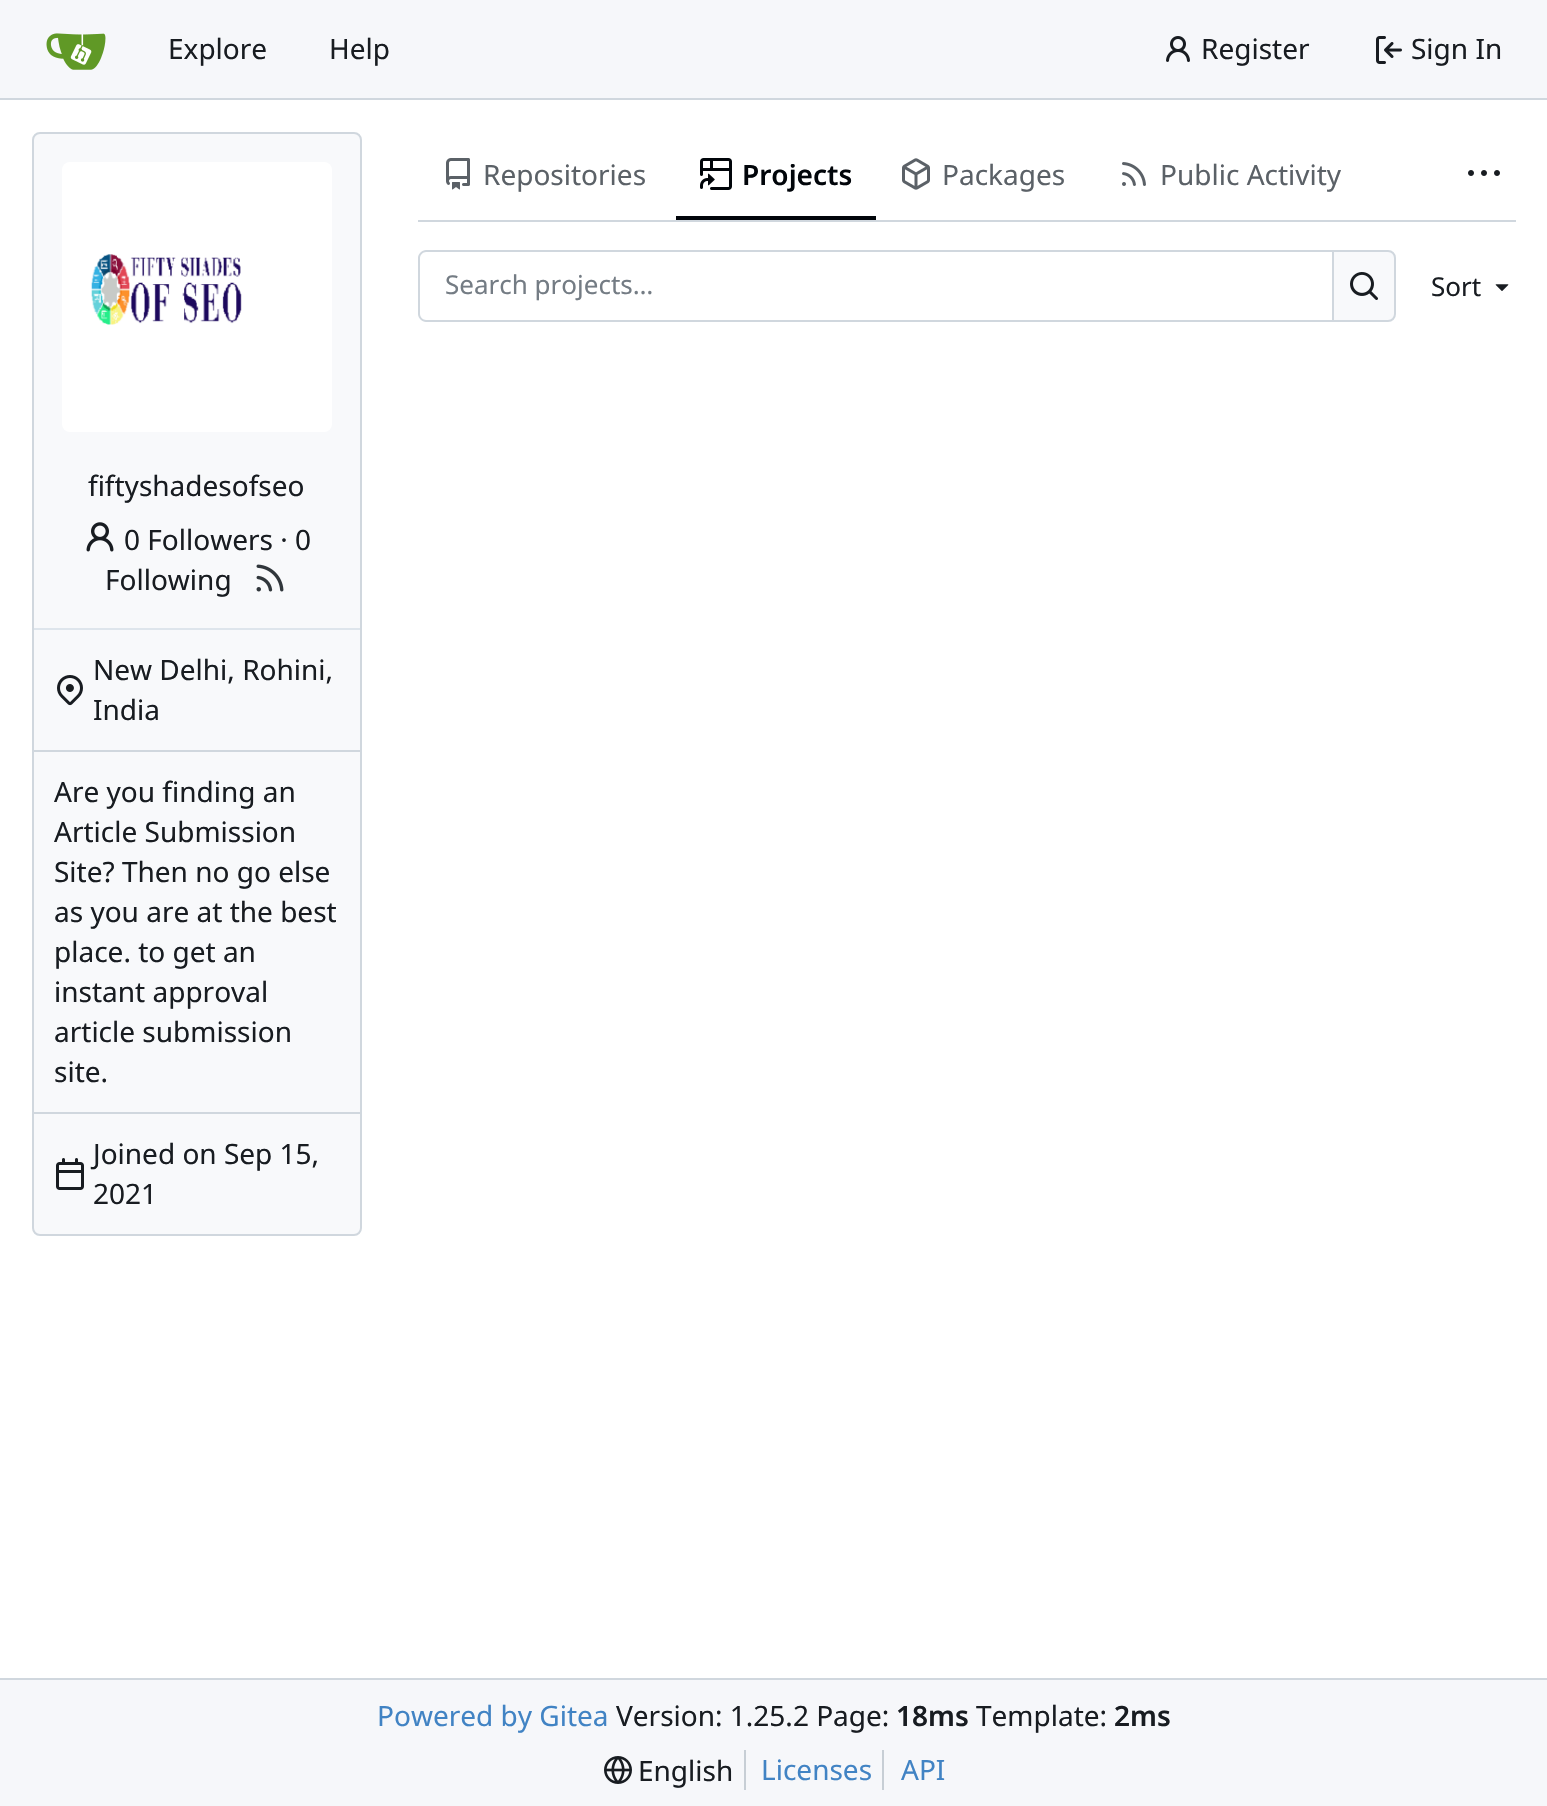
#include "include/core/SkBlurTypes.h"
#include "include/core/SkCanvas.h"
#include "include/core/SkData.h"
#include "include/core/SkFont.h"
#include "include/core/SkFontMgr.h"
#include "include/core/SkImage.h"
#include "include/core/SkMaskFilter.h"
#include "include/core/SkPaint.h"
#include "include/core/SkPathBuilder.h"
#include "include/core/SkTextBlob.h"
#include "include/effects/SkDashPathEffect.h"
#include "include/effects/SkGradientShader.h"
#include "include/utils/SkParsePath.h"

extern sk_sp<SkFontMgr> fontMgr;

void draw(SkCanvas* canvas) {
    SkPaint p;
    p.setAntiAlias(true);
    auto font = [&](const char* family, int weight, float size, bool italic = false) {
        SkFontStyle style(weight, SkFontStyle::kNormal_Width,
            italic ? SkFontStyle::kItalic_Slant : SkFontStyle::kUpright_Slant);
        SkFont result(fontMgr->matchFamilyStyle(family, style), size);
        result.setSubpixel(true);
        return result;
    };
    auto drawPhoto = [&](const char* path, float l, float t, float r, float b) {
        auto image = SkImages::DeferredFromEncodedData(SkData::MakeFromFileName(path));
        canvas->drawImageRect(image, SkRect::MakeLTRB(l, t, r, b), SkSamplingOptions());
    };
    canvas->clear(0xFFFFFFFF);
    p.setColor(0xFFF6F7FA);
    canvas->drawRect(SkRect::MakeLTRB(0, 0, 1547, 98), p);
    p.setColor(0xFFD0D7DE);
    canvas->drawRect(SkRect::MakeLTRB(0, 98, 1547, 100), p);
    drawPhoto("media/1.png", 46, 33, 106, 70);
    auto font1 = font("Noto Sans", 400, 28);
    p.setColor(0xFF181C21);
    canvas->drawString("Explore", 168, 59, font1, p);
    canvas->drawString("Help", 329, 59, font1, p);
    drawPhoto("media/2.png", 1166, 36, 1190, 62);
    canvas->drawString("Register", 1201, 59, font1, p);
    drawPhoto("media/3.png", 1376, 36, 1402, 64);
    canvas->drawString("Sign In", 1411, 59, font1, p);
    p.setColor(0xFFD0D7DE);
    canvas->drawRect(SkRect::MakeLTRB(418, 220, 1516, 222), p);
    drawPhoto("media/4.png", 446, 158, 470, 190);
    p.setColor(0xFF5B6167);
    canvas->drawString("Repositories", 483, 185, font1, p);
    p.setColor(0xFF01050A);
    canvas->drawRect(SkRect::MakeLTRB(676, 216, 876, 220), p);
    drawPhoto("media/5.png", 700, 158, 732, 190);
    auto font2 = font("Noto Sans", 600, 28);
    canvas->drawString("Projects", 742, 185, font2, p);
    drawPhoto("media/6.png", 902, 158, 930, 190);
    p.setColor(0xFF5B6167);
    canvas->drawString("Packages", 942, 185, font1, p);
    drawPhoto("media/7.png", 1122, 162, 1146, 186);
    canvas->drawString("Public Activity", 1160, 185, font1, p);
    drawPhoto("media/8.png", 1468, 170, 1500, 176);
    p.setColor(0xFFD0D7DE);
    canvas->drawPath(SkPathBuilder(SkPathFillType::kEvenOdd).moveTo(426, 250).lineTo(1332, 250).lineTo(1332, 322).lineTo(426, 322).cubicTo(422, 322, 418, 318, 418, 314).lineTo(418, 258).cubicTo(418, 254, 422, 250, 426, 250).close().moveTo(426, 252).lineTo(1332, 252).lineTo(1332, 320).lineTo(426, 320).cubicTo(423, 320, 420, 317, 420, 314).lineTo(420, 258).cubicTo(420, 255, 423, 252, 426, 252).close().detach(), p);
    auto font3 = font("Noto Sans", 400, 26);
    p.setColor(0xFF747C84);
    canvas->drawString("Search projects…", 445, 294, font3, p);
    p.setColor(0xFFF8F9FB);
    canvas->drawPath(SkPathBuilder().moveTo(1333, 251).lineTo(1388, 251).cubicTo(1392, 251, 1395, 254, 1395, 258).lineTo(1395, 314).cubicTo(1395, 318, 1392, 321, 1388, 321).lineTo(1333, 321).close().detach(), p);
    p.setStyle(SkPaint::kStroke_Style);
    p.setStrokeWidth(2);
    p.setColor(0xFFD0D7DE);
    canvas->drawPath(SkPathBuilder().moveTo(1333, 251).lineTo(1388, 251).cubicTo(1392, 251, 1395, 254, 1395, 258).lineTo(1395, 314).cubicTo(1395, 318, 1392, 321, 1388, 321).lineTo(1333, 321).close().detach(), p);
    drawPhoto("media/9.png", 1350, 272, 1378, 300);
    p.setStyle(SkPaint::kFill_Style);
    p.setColor(0xFF181C21);
    canvas->drawString("Sort", 1431, 296, font3, p);
    drawPhoto("media/10.png", 1495, 284, 1509, 291);
    p.setColor(0xFFF8F9FB);
    canvas->drawRoundRect(SkRect::MakeLTRB(33, 133, 361, 1235), 7, 7, p);
    p.setStyle(SkPaint::kStroke_Style);
    p.setColor(0xFFD0D7DE);
    canvas->drawRoundRect(SkRect::MakeLTRB(33, 133, 361, 1235), 7, 7, p);
    drawPhoto("media/11.png", 62, 162, 332, 432);
    p.setStyle(SkPaint::kFill_Style);
    p.setColor(0xFF181C21);
    canvas->drawString("fiftyshadesofseo", 88, 496, font1, p);
    drawPhoto("media/12.png", 86, 522, 114, 552);
    canvas->drawString("0 Followers · 0", 124, 550, font1, p);
    canvas->drawString("Following", 105, 590, font1, p);
    drawPhoto("media/13.png", 256, 564, 284, 592);
    p.setColor(0xFFDEE5EC);
    canvas->drawRect(SkRect::MakeLTRB(34, 628, 360, 630), p);
    p.setColor(0xFFD0D7DE);
    canvas->drawRect(SkRect::MakeLTRB(34, 750, 360, 752), p);
    drawPhoto("media/14.png", 57, 675, 83, 706);
    p.setColor(0xFF181C21);
    canvas->drawString("New Delhi, Rohini,", 93, 680, font1, p);
    canvas->drawString("India", 93, 720, font1, p);
    p.setColor(0xFFD0D7DE);
    canvas->drawRect(SkRect::MakeLTRB(34, 1112, 360, 1114), p);
    p.setColor(0xFF181C21);
    {
        const struct { const char* s; float x, y; } items[] = {
            {"Are you finding an", 54, 802},
            {"Article Submission", 54, 842},
            {"Site? Then no go else", 54, 882},
            {"as you are at the best", 54, 922},
            {"place. to get an", 54, 962},
            {"instant approval", 54, 1002},
            {"article submission", 54, 1042},
            {"site.", 54, 1082},
        };
        for (auto [s, x, y] : items) {
            canvas->drawString(s, x, y, font1, p);
        }
    }
    drawPhoto("media/15.png", 56, 1158, 84, 1190);
    canvas->drawString("Joined on Sep 15,", 93, 1164, font1, p);
    canvas->drawString("2021", 93, 1204, font1, p);
    p.setColor(0xFFF6F7FA);
    canvas->drawRect(SkRect::MakeLTRB(0, 1680, 1547, 1806), p);
    p.setColor(0xFFD0D7DE);
    canvas->drawRect(SkRect::MakeLTRB(0, 1678, 1547, 1680), p);
    p.setColor(0xFF4183C4);
    canvas->drawString("Powered by Gitea", 377, 1726, font1, p);
    p.setColor(0xFF181C21);
    canvas->drawString("Version: 1.25.2 Page:", 616, 1726, font1, p);
    canvas->drawString("18ms", 896, 1726, font2, p);
    canvas->drawString("Template:", 976, 1726, font1, p);
    canvas->drawString("2ms", 1114, 1726, font2, p);
    drawPhoto("media/16.png", 604, 1756, 632, 1784);
    canvas->drawString("English", 638, 1781, font1, p);
    p.setColor(0xFFC7CED5);
    canvas->drawRect(SkRect::MakeLTRB(744, 1750, 746, 1790), p);
    p.setColor(0xFF4183C4);
    canvas->drawString("Licenses", 761, 1780, font1, p);
    p.setColor(0xFFC7CED5);
    canvas->drawRect(SkRect::MakeLTRB(882, 1750, 884, 1790), p);
    p.setColor(0xFF4183C4);
    canvas->drawString("API", 901, 1780, font1, p);
}
